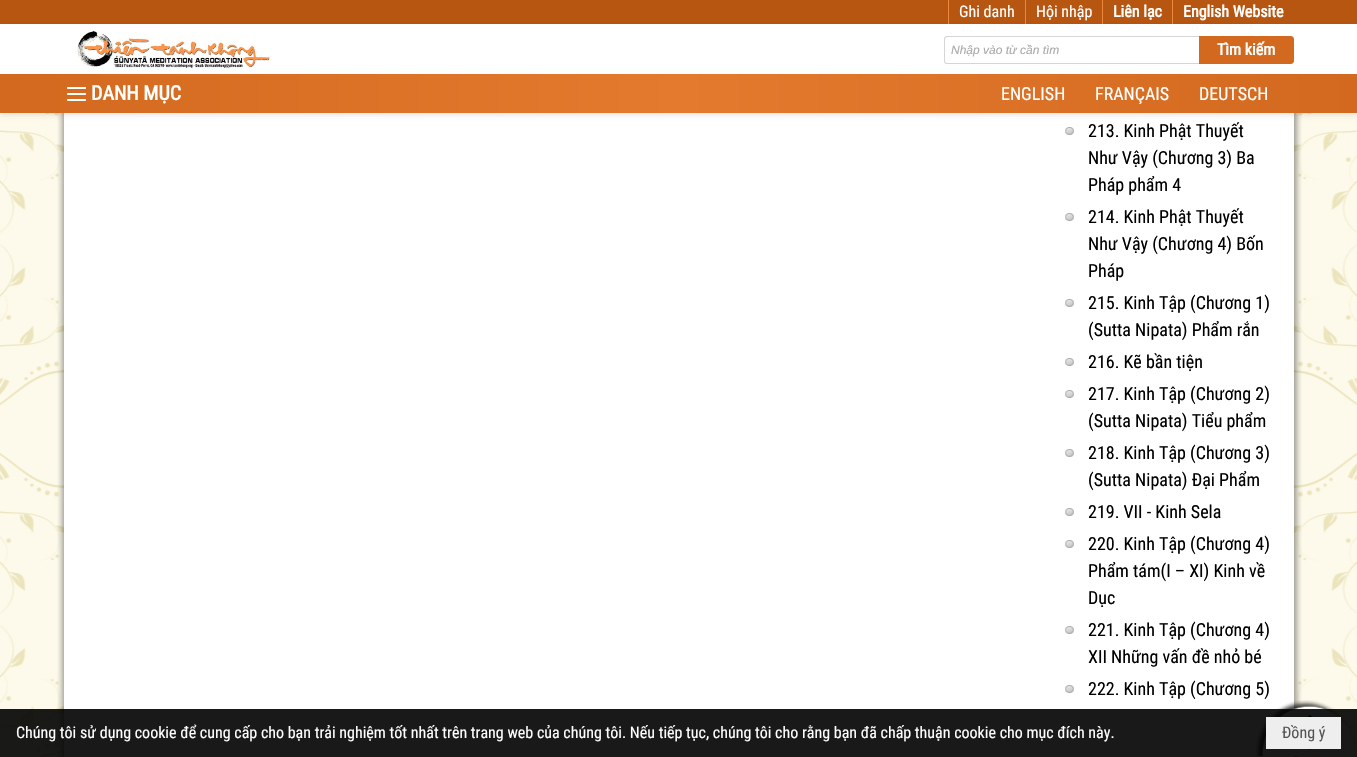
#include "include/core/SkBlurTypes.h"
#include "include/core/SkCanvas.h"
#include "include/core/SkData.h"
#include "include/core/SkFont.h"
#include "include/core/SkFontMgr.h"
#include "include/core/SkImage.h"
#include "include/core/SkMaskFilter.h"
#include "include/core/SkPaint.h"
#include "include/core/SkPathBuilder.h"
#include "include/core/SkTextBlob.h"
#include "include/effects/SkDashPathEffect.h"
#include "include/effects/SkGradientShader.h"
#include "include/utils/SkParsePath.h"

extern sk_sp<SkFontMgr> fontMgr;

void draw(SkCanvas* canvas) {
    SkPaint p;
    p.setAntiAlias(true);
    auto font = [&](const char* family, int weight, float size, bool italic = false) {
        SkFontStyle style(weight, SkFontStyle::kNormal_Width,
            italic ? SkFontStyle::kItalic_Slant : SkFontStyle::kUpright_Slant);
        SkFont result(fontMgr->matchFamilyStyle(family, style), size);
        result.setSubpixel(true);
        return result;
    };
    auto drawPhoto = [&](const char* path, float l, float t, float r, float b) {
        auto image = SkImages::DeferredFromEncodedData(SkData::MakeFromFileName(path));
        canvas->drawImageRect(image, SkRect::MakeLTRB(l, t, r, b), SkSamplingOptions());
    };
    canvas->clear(0xFFFFFFFF);
    drawPhoto("media/1.png", 0, 113, 1357, 757);
    drawPhoto("media/2.png", 57, 113, 1302, 757);
    p.setColor(0xFFB75611);
    canvas->drawRect(SkRect::MakeLTRB(0, 0, 1357, 24), p);
    p.setColor(0xFFED873E);
    canvas->drawRect(SkRect::MakeLTRB(948, 0, 949, 24), p);
    auto font1 = font("Roboto Condensed", 400, 16);
    p.setColor(0xFFFFFFFF);
    canvas->drawString("Ghi danh", 959, 17, font1, p);
    p.setColor(0xFFED873E);
    canvas->drawRect(SkRect::MakeLTRB(1025, 0, 1026, 24), p);
    p.setColor(0xFFFFFFFF);
    canvas->drawString("Hội nhập", 1036, 17, font1, p);
    p.setColor(0xFFED873E);
    canvas->drawRect(SkRect::MakeLTRB(1102, 0, 1103, 24), p);
    auto font2 = font("Roboto Condensed", 700, 16);
    p.setColor(0xFFFFFFFF);
    canvas->drawString("Liên lạc", 1113, 17, font2, p);
    p.setColor(0xFFED873E);
    canvas->drawRect(SkRect::MakeLTRB(1172, 0, 1173, 24), p);
    p.setColor(0xFFFFFFFF);
    canvas->drawString("English Website", 1183, 17, font2, p);
    p.setColor(0x1A000000);
    p.setMaskFilter(SkMaskFilter::MakeBlur(kNormal_SkBlurStyle, 2.5f));
    canvas->drawRect(SkRect::MakeLTRB(0, 26, 1357, 115), p);
    p.setMaskFilter(nullptr);
    p.setColor(0xFFFFFFFF);
    canvas->drawRect(SkRect::MakeLTRB(0, 24, 1357, 74), p);
    drawPhoto("media/3.png", 77, 31, 270, 69);
    p.setColor(0xFFD5D5D5);
    canvas->drawPath(SkPathBuilder(SkPathFillType::kEvenOdd).moveTo(947, 36).lineTo(1199, 36).lineTo(1199, 64).lineTo(947, 64).cubicTo(945, 64, 944, 63, 944, 61).lineTo(944, 39).cubicTo(944, 37, 945, 36, 947, 36).close().moveTo(947, 37).lineTo(1199, 37).lineTo(1199, 63).lineTo(947, 63).cubicTo(946, 63, 945, 62, 945, 61).lineTo(945, 39).cubicTo(945, 38, 946, 37, 947, 37).close().detach(), p);
    auto font3 = font("Liberation Sans", 400, 12, true);
    p.setColor(0xFFAAAAAA);
    canvas->drawString("Nhập vào từ cần tìm", 951, 54, font3, p);
    p.setColor(0xFFD2691E);
    canvas->drawPath(SkPathBuilder().moveTo(1199, 36).lineTo(1291, 36).cubicTo(1292.5f, 36, 1294, 37.5f, 1294, 39).lineTo(1294, 61).cubicTo(1294, 62.5f, 1292.5f, 64, 1291, 64).lineTo(1199, 64).close().detach(), p);
    p.setColor(0xFFFFFFFF);
    canvas->drawString("Tìm kiếm", 1217, 55, font2, p);
    {
        const SkColor colors[] = {0xFFD2691E, 0xFFE47A2E, 0xFFD2691E};
        const float stops[] = {0, 0.5f, 1};
        const SkPoint ends[] = {{0, 94}, {1357, 93}};
        p.setShader(SkGradientShader::MakeLinear(ends, colors, stops, 3, SkTileMode::kClamp));
        p.setAlpha(255);
    }
    canvas->drawRect(SkRect::MakeLTRB(0, 74, 1357, 113), p);
    drawPhoto("media/4.png", 67, 87, 86, 101);
    auto font4 = font("Roboto Condensed", 700, 20);
    p.setShader(nullptr);
    p.setColor(0xFFFFFFFF);
    canvas->drawString("DANH MỤC", 91, 100, font4, p);
    auto font5 = font("Roboto Condensed", 400, 18);
    {
        const struct { const char* s; float x, y; } items[] = {
            {"ENGLISH", 1001, 100},
            {"FRANÇAIS", 1095, 100},
            {"DEUTSCH", 1199, 100},
        };
        for (auto [s, x, y] : items) {
            canvas->drawString(s, x, y, font5, p);
        }
    }
    drawPhoto("media/5.png", 1065, 127, 1074, 135);
    p.setColor(0xFF000000);
    {
        const struct { const char* s; float x, y; } items[] = {
            {"213. Kinh Phật Thuyết", 1088, 137},
            {"Như Vậy (Chương 3) Ba", 1088, 164},
            {"Pháp phẩm 4", 1088, 191},
        };
        for (auto [s, x, y] : items) {
            canvas->drawString(s, x, y, font5, p);
        }
    }
    drawPhoto("media/5.png", 1065, 213, 1074, 221);
    {
        const struct { const char* s; float x, y; } items[] = {
            {"214. Kinh Phật Thuyết", 1088, 223},
            {"Như Vậy (Chương 4) Bốn", 1088, 250},
            {"Pháp", 1088, 277},
        };
        for (auto [s, x, y] : items) {
            canvas->drawString(s, x, y, font5, p);
        }
    }
    drawPhoto("media/5.png", 1065, 299, 1074, 307);
    canvas->drawString("215. Kinh Tập (Chương 1)", 1088, 309, font5, p);
    canvas->drawString("(Sutta Nipata) Phẩm rắn", 1088, 336, font5, p);
    drawPhoto("media/5.png", 1065, 358, 1074, 366);
    canvas->drawString("216. Kẽ bần tiện", 1088, 368, font5, p);
    drawPhoto("media/5.png", 1065, 390, 1074, 398);
    canvas->drawString("217. Kinh Tập (Chương 2)", 1088, 400, font5, p);
    canvas->drawString("(Sutta Nipata) Tiểu phẩm", 1088, 427, font5, p);
    drawPhoto("media/5.png", 1065, 449, 1074, 457);
    canvas->drawString("218. Kinh Tập (Chương 3)", 1088, 459, font5, p);
    canvas->drawString("(Sutta Nipata) Đại Phẩm", 1088, 486, font5, p);
    drawPhoto("media/5.png", 1065, 508, 1074, 516);
    canvas->drawString("219. VII - Kinh Sela", 1088, 518, font5, p);
    drawPhoto("media/5.png", 1065, 540, 1074, 548);
    {
        const struct { const char* s; float x, y; } items[] = {
            {"220. Kinh Tập (Chương 4)", 1088, 550},
            {"Phẩm tám(I – XI) Kinh về", 1088, 577},
            {"Dục", 1088, 604},
        };
        for (auto [s, x, y] : items) {
            canvas->drawString(s, x, y, font5, p);
        }
    }
    drawPhoto("media/5.png", 1065, 626, 1074, 634);
    canvas->drawString("221. Kinh Tập (Chương 4)", 1088, 636, font5, p);
    canvas->drawString("XII Những vấn đề nhỏ bé", 1088, 663, font5, p);
    drawPhoto("media/5.png", 1065, 685, 1074, 693);
    canvas->drawString("222. Kinh Tập (Chương 5)", 1088, 695, font5, p);
    drawPhoto("media/6.png", 1255, 700, 1357, 756);
    p.setColor(0xE6000000);
    canvas->drawRect(SkRect::MakeLTRB(0, 709, 1357, 757), p);
    p.setColor(0xFFFFFFFF);
    canvas->drawString("Chúng tôi sử dụng cookie để cung cấp cho bạn trải nghiệm tốt nhất trên trang web của chúng tôi. Nếu tiếp tục, chúng tôi cho rằng bạn đã chấp thuận cookie cho mục đích này.", 16, 738, font1, p);
    p.setColor(0xFFEEEEEE);
    canvas->drawRect(SkRect::MakeLTRB(1266, 717, 1341, 749), p);
    p.setColor(0xFF555555);
    canvas->drawString("Đồng ý", 1282, 738, font1, p);
}
